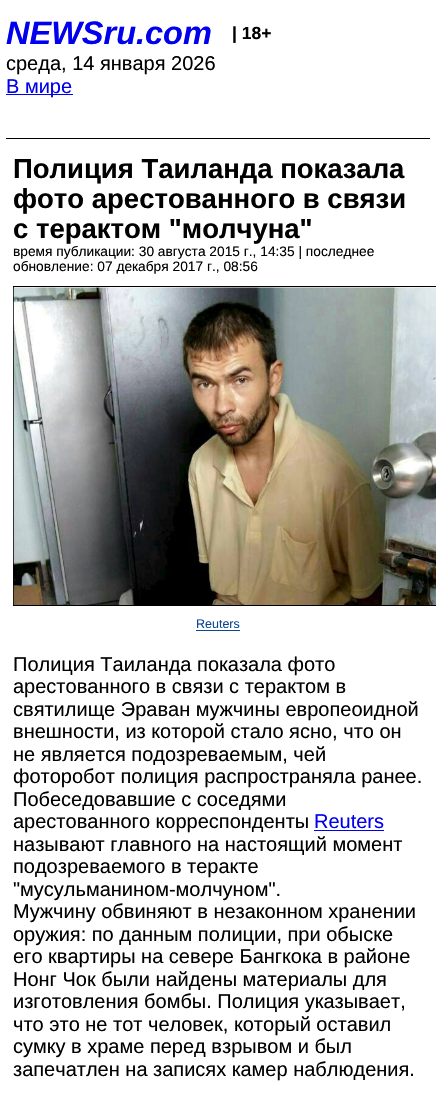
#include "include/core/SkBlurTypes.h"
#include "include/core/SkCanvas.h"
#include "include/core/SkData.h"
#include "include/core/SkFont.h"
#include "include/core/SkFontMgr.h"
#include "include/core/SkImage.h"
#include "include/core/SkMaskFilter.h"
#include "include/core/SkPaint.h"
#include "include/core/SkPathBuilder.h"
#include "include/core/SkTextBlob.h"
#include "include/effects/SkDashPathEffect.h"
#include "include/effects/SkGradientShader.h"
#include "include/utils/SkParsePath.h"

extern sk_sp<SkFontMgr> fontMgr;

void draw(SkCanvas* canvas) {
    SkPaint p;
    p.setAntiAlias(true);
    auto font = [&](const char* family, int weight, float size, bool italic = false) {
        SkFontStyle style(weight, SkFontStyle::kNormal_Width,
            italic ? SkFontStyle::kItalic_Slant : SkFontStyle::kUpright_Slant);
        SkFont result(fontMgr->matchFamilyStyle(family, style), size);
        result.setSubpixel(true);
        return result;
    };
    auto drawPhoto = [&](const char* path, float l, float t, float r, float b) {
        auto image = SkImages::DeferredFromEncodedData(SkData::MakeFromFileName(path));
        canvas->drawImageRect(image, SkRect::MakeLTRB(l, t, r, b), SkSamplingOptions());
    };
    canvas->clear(0xFFFFFFFF);
    p.setColor(0xFF000000);
    canvas->drawRect(SkRect::MakeLTRB(6, 138, 430, 139), p);
    auto font1 = font("Liberation Sans", 700, 32.5f, true);
    p.setColor(0xFF0000EE);
    canvas->drawString("NEWSru.com", 6, 44, font1, p);
    auto font2 = font("Liberation Sans", 700, 17.5f);
    p.setColor(0xFF000000);
    canvas->drawString("| 18+", 232, 39, font2, p);
    auto font3 = font("Liberation Sans", 400, 20);
    canvas->drawString("среда, 14 января 2026", 6, 70, font3, p);
    p.setColor(0xFF0000EE);
    canvas->drawRect(SkRect::MakeLTRB(6, 94, 73, 95), p);
    canvas->drawString("В мире", 6, 93, font3, p);
    auto font4 = font("Liberation Sans", 700, 27.5f);
    p.setColor(0xFF000000);
    {
        const struct { const char* s; float x, y; } items[] = {
            {"Полиция Таиланда показала", 13, 178},
            {"фото арестованного в связи", 13, 208},
            {"с терактом \"молчуна\"", 13, 238},
        };
        for (auto [s, x, y] : items) {
            canvas->drawString(s, x, y, font4, p);
        }
    }
    auto font5 = font("Liberation Sans", 400, 13.75f);
    canvas->drawString("время публикации: 30 августа 2015 г., 14:35 | последнее", 13, 256, font5, p);
    canvas->drawString("обновление: 07 декабря 2017 г., 08:56", 13, 271, font5, p);
    p.setStyle(SkPaint::kStroke_Style);
    p.setStrokeWidth(1);
    canvas->drawRect(SkRect::MakeLTRB(13.5f, 286.5f, 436.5f, 605.5f), p);
    drawPhoto("media/1.png", 13, 287, 436, 605);
    auto font6 = font("Liberation Sans", 400, 12.5f);
    p.setStyle(SkPaint::kFill_Style);
    p.setColor(0xFF09488F);
    canvas->drawString("Reuters", 196, 628, font6, p);
    canvas->drawRect(SkRect::MakeLTRB(196, 630, 240, 631), p);
    p.setColor(0xFF000000);
    {
        const struct { const char* s; float x, y; } items[] = {
            {"Полиция Таиланда показала фото", 13, 671},
            {"арестованного в связи с терактом в", 13, 693},
            {"святилище Эраван мужчины европеоидной", 13, 716},
            {"внешности, из которой стало ясно, что он", 13, 738},
            {"не является подозреваемым, чей", 13, 761},
            {"фоторобот полиция распространяла ранее.", 13, 783},
            {"Побеседовавшие с соседями", 13, 806},
            {"арестованного корреспонденты", 13, 828},
        };
        for (auto [s, x, y] : items) {
            canvas->drawString(s, x, y, font3, p);
        }
    }
    p.setColor(0xFF0000EE);
    canvas->drawString("Reuters", 314, 828, font3, p);
    canvas->drawRect(SkRect::MakeLTRB(314, 830, 384, 831), p);
    p.setColor(0xFF000000);
    {
        const struct { const char* s; float x, y; } items[] = {
            {"называют главного на настоящий момент", 13, 851},
            {"подозреваемого в теракте", 13, 873},
            {"\"мусульманином-молчуном\".", 13, 896},
            {"Мужчину обвиняют в незаконном хранении", 13, 918},
            {"оружия: по данным полиции, при обыске", 13, 941},
            {"его квартиры на севере Бангкока в районе", 13, 963},
            {"Нонг Чок были найдены материалы для", 13, 986},
            {"изготовления бомбы. Полиция указывает,", 13, 1008},
            {"что это не тот человек, который оставил", 13, 1031},
            {"сумку в храме перед взрывом и был", 13, 1053},
            {"запечатлен на записях камер наблюдения.", 13, 1076},
        };
        for (auto [s, x, y] : items) {
            canvas->drawString(s, x, y, font3, p);
        }
    }
}
